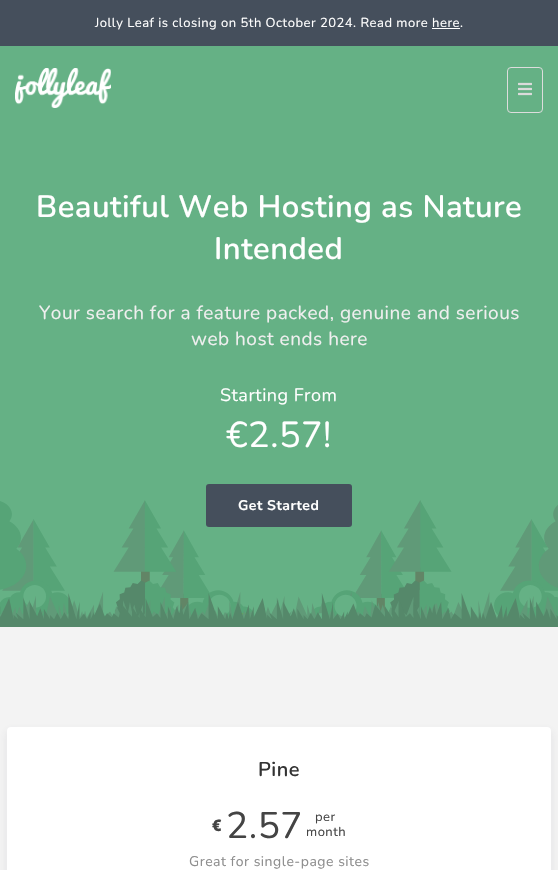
#include "include/core/SkBlurTypes.h"
#include "include/core/SkCanvas.h"
#include "include/core/SkData.h"
#include "include/core/SkFont.h"
#include "include/core/SkFontMgr.h"
#include "include/core/SkImage.h"
#include "include/core/SkMaskFilter.h"
#include "include/core/SkPaint.h"
#include "include/core/SkPathBuilder.h"
#include "include/core/SkTextBlob.h"
#include "include/effects/SkDashPathEffect.h"
#include "include/effects/SkGradientShader.h"
#include "include/utils/SkParsePath.h"

extern sk_sp<SkFontMgr> fontMgr;

void draw(SkCanvas* canvas) {
    SkPaint p;
    p.setAntiAlias(true);
    auto font = [&](const char* family, int weight, float size, bool italic = false) {
        SkFontStyle style(weight, SkFontStyle::kNormal_Width,
            italic ? SkFontStyle::kItalic_Slant : SkFontStyle::kUpright_Slant);
        SkFont result(fontMgr->matchFamilyStyle(family, style), size);
        result.setSubpixel(true);
        return result;
    };
    auto drawTracked = [&](const char* s, float x, float y, const SkFont& font, const SkPaint& ink, float letter, float word) {
        std::vector<SkGlyphID> glyphs(font.countText(s, strlen(s), SkTextEncoding::kUTF8));
        std::vector<float> xs(glyphs.size());
        font.textToGlyphs(s, strlen(s), SkTextEncoding::kUTF8, glyphs);
        font.getXPos(glyphs, xs, x);
        float extra = 0;
        for (size_t i = 0; i < glyphs.size(); i++) {
            xs[i] += extra;
            extra += letter + word * (glyphs[i] == font.unicharToGlyph(' '));
        }
        canvas->drawTextBlob(SkTextBlob::MakeFromPosHGlyphs(glyphs, xs, y, font), 0, 0, ink);
    };
    auto drawPhoto = [&](const char* path, float l, float t, float r, float b) {
        auto image = SkImages::DeferredFromEncodedData(SkData::MakeFromFileName(path));
        canvas->drawImageRect(image, SkRect::MakeLTRB(l, t, r, b), SkSamplingOptions());
    };
    canvas->clear(0xFF454F5C);
    auto font1 = font("Nunito", 400, 13);
    p.setColor(0xFFFFFFFF);
    drawTracked("Jolly Leaf is closing on 5th October 2024. Read more here.", 95, 27, font1, p, 0.5f, 0);
    canvas->drawRect(SkRect::MakeLTRB(432, 28, 460, 29), p);
    p.setColor(0xFF65B185);
    canvas->drawRect(SkRect::MakeLTRB(0, 46, 558, 627), p);
    drawPhoto("media/1.png", 15, 68, 111, 108);
    p.setStyle(SkPaint::kStroke_Style);
    p.setStrokeWidth(1);
    p.setColor(0xFFDDDDDD);
    canvas->drawRoundRect(SkRect::MakeLTRB(507.5f, 67.5f, 542.5f, 112.5f), 3.5f, 3.5f, p);
    drawPhoto("media/2.png", 518, 82, 532, 96);
    drawPhoto("media/3.png", 0, 500, 558, 627);
    auto font2 = font("Nunito", 600, 31);
    p.setStyle(SkPaint::kFill_Style);
    p.setColor(0xFFFFFFFF);
    drawTracked("Beautiful Web Hosting as Nature", 36, 217, font2, p, 0.5f, 0);
    drawTracked("Intended", 214, 259, font2, p, 0.5f, 0);
    auto font3 = font("Nunito", 400, 19);
    p.setColor(0xFFEFEFEF);
    drawTracked("Your search for a feature packed, genuine and serious", 39, 319, font3, p, 0.5f, 0);
    drawTracked("web host ends here", 191, 345, font3, p, 0.5f, 0);
    auto font4 = font("Nunito", 400, 18);
    p.setColor(0xFFFFFFFF);
    drawTracked("Starting From", 220, 401, font4, p, 0.5f, 0);
    auto font5 = font("Nunito", 400, 36);
    drawTracked("€2.57!", 226, 447, font5, p, 0.5f, 0);
    p.setColor(0xFF454F5C);
    canvas->drawRoundRect(SkRect::MakeLTRB(206, 484, 352, 527), 3, 3, p);
    auto font6 = font("Nunito", 700, 14);
    p.setColor(0xFFFFFFFF);
    drawTracked("Get Started", 238, 510, font6, p, 0.5f, 0);
    p.setColor(0xFFF3F3F3);
    canvas->drawRect(SkRect::MakeLTRB(0, 627, 558, 870), p);
    p.setColor(0x1A484654);
    p.setMaskFilter(SkMaskFilter::MakeBlur(kNormal_SkBlurStyle, 4));
    canvas->drawRoundRect(SkRect::MakeLTRB(7, 731, 551, 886), 4, 4, p);
    p.setMaskFilter(nullptr);
    p.setColor(0xFFFFFFFF);
    canvas->drawRoundRect(SkRect::MakeLTRB(7, 727, 551, 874), 4, 4, p);
    auto font7 = font("Nunito", 600, 20);
    p.setColor(0xFF333333);
    drawTracked("Pine", 258, 776, font7, p, 0.5f, 0);
    auto font8 = font("Noto Sans", 900, 16);
    p.setColor(0xFF444444);
    drawTracked("€", 212, 831, font8, p, 0.5f, 0);
    auto font9 = font("Nunito", 400, 37);
    drawTracked("2.57", 226, 838, font9, p, 0.5f, 0);
    drawTracked("per", 315, 821, font1, p, 0.5f, 0);
    drawTracked("month", 306, 836, font1, p, 0.5f, 0);
    auto font10 = font("Nunito", 400, 14);
    p.setColor(0xFF8E8E8E);
    drawTracked("Great for single-page sites", 189, 866, font10, p, 0.5f, 0);
}
